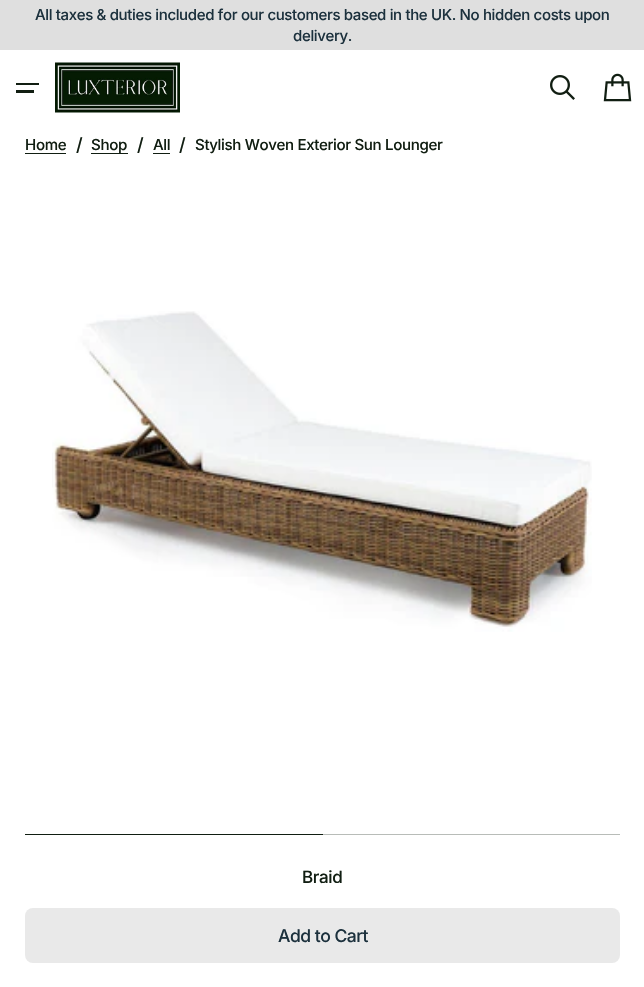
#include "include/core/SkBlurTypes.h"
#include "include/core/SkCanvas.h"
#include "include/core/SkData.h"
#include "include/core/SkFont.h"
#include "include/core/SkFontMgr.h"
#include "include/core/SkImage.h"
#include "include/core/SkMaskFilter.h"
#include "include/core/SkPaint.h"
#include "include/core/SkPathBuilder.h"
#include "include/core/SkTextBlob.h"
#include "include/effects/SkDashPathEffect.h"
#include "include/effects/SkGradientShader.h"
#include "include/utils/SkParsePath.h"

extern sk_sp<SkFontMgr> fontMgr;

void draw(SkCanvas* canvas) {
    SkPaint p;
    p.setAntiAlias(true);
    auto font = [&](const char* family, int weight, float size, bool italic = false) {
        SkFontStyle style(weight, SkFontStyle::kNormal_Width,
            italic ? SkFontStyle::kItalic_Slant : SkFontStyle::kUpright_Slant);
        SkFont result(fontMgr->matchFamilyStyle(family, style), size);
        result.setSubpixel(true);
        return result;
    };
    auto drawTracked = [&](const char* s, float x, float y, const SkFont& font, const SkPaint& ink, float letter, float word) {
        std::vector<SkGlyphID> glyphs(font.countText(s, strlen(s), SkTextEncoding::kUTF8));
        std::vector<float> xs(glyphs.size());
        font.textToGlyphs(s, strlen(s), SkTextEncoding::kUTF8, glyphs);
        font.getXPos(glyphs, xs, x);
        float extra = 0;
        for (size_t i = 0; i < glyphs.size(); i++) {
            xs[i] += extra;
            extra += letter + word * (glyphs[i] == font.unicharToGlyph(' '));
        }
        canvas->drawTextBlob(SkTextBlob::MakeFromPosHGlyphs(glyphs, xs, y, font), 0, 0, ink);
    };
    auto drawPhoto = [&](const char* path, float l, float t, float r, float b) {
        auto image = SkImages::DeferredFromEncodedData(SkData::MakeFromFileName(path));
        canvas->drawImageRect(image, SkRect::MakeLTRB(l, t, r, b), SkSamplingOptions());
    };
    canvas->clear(0xFFFFFFFF);
    p.setColor(0xFFDFDFDF);
    canvas->drawRect(SkRect::MakeLTRB(0, 0, 644, 50), p);
    auto font1 = font("Inter", 500, 15);
    p.setColor(0xFF1C313D);
    drawTracked("All taxes & duties included for our customers based in the UK. No hidden costs upon", 35, 20, font1, p, -0.35f, 0);
    drawTracked("delivery.", 293, 41, font1, p, -0.35f, 0);
    p.setColor(0xFF111E12);
    canvas->drawRect(SkRect::MakeLTRB(16, 83, 39, 85), p);
    canvas->drawRect(SkRect::MakeLTRB(16, 90, 34, 93), p);
    drawPhoto("media/1.png", 55, 62, 180, 113);
    drawPhoto("media/2.png", 550, 75, 575, 100);
    drawPhoto("media/3.png", 603, 73, 632, 102);
    auto font2 = font("Inter", 500, 15.1f);
    drawTracked("Home", 25, 150, font2, p, -0.35f, 0);
    canvas->drawRect(SkRect::MakeLTRB(25, 153, 66, 154), p);
    auto font3 = font("Inter", 500, 18);
    canvas->drawString("/", 76, 151, font3, p);
    canvas->drawRect(SkRect::MakeLTRB(91, 153, 128, 154), p);
    drawTracked("Shop", 91, 150, font2, p, -0.35f, 0);
    canvas->drawString("/", 137, 151, font3, p);
    drawTracked("All", 153, 150, font2, p, -0.35f, 0);
    canvas->drawRect(SkRect::MakeLTRB(153, 153, 170, 154), p);
    canvas->drawString("/", 179, 151, font3, p);
    drawTracked("Stylish Woven Exterior Sun Lounger", 195, 150, font2, p, -0.35f, 0);
    drawPhoto("media/4.png", 52, 311, 592, 632);
    canvas->drawRect(SkRect::MakeLTRB(25, 834, 323, 835), p);
    p.setColor(0xFFB8BCB8);
    canvas->drawRect(SkRect::MakeLTRB(323, 834, 620, 835), p);
    auto font4 = font("Inter", 500, 17);
    p.setColor(0xFF111E12);
    drawTracked("Braid", 302, 883, font4, p, -0.35f, 0);
    p.setColor(0xFFFFFFFF);
    canvas->drawRect(SkRect::MakeLTRB(322, 883, 339, 884), p);
    p.setColor(0xFFE9E9E9);
    canvas->drawRoundRect(SkRect::MakeLTRB(25, 908, 620, 963), 8, 8, p);
    auto font5 = font("Inter", 500, 17.5f);
    p.setColor(0xFF1C313D);
    drawTracked("Add to Cart", 278, 942, font5, p, -0.5f, 0);
}
